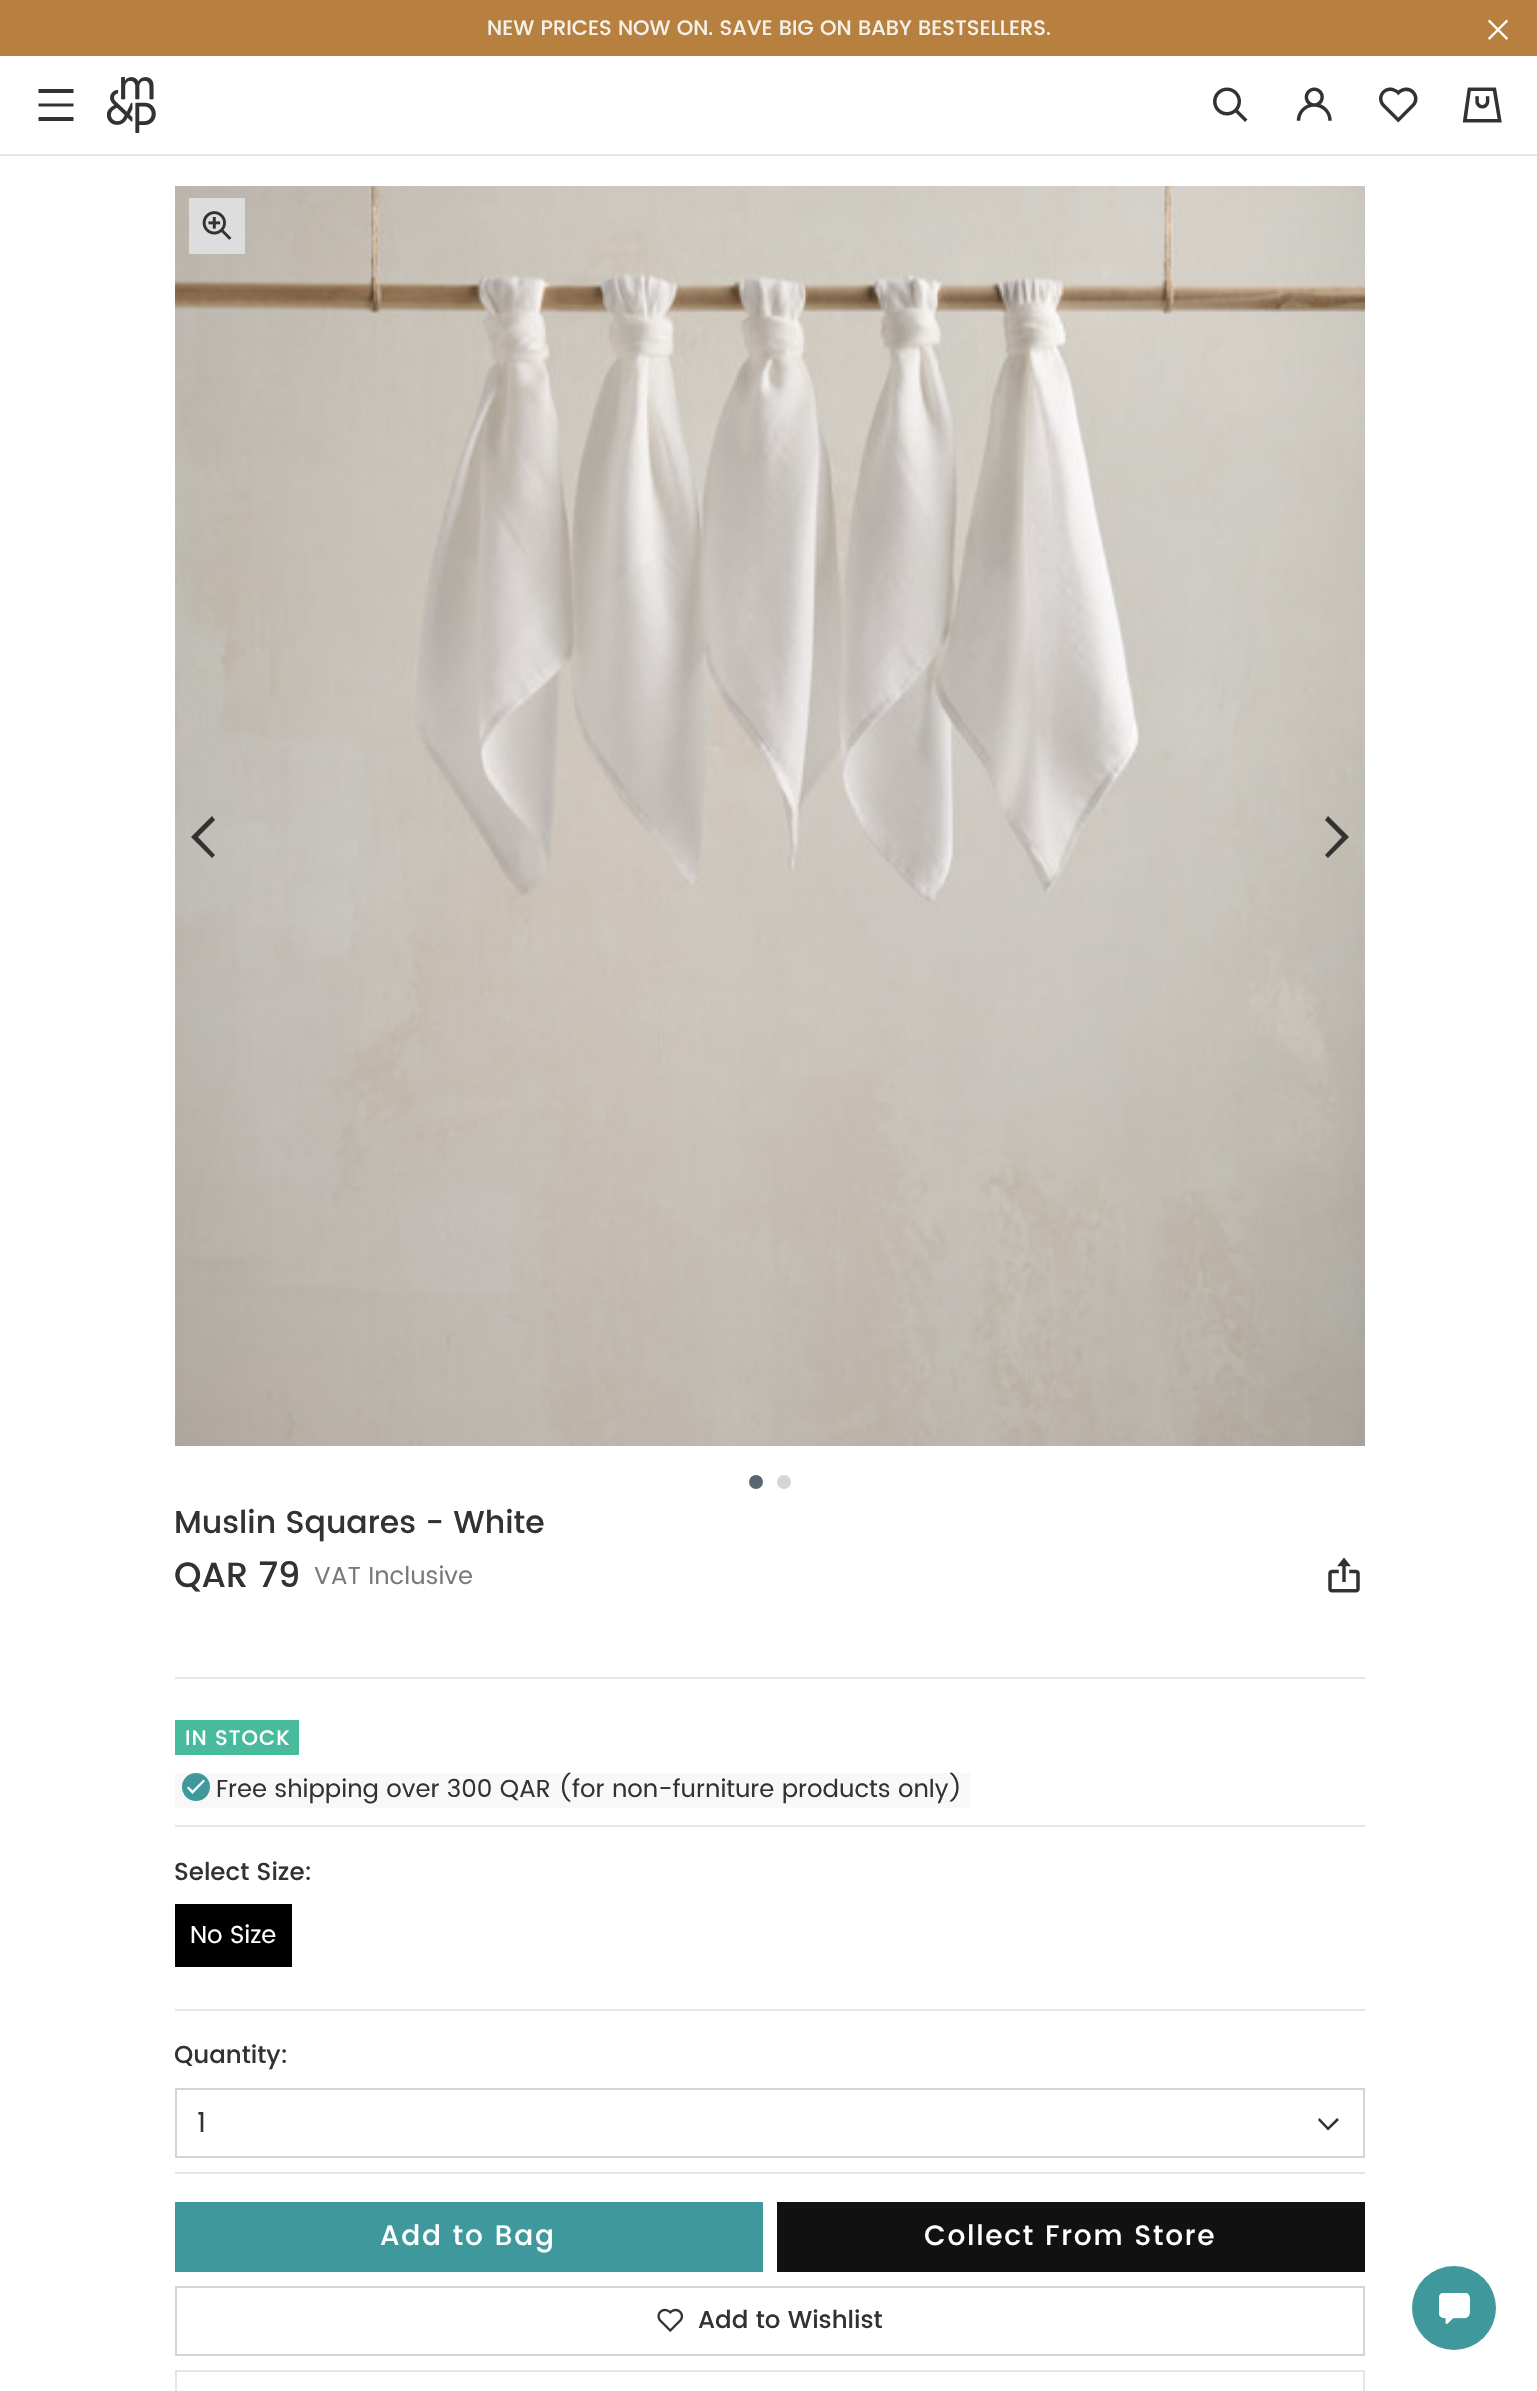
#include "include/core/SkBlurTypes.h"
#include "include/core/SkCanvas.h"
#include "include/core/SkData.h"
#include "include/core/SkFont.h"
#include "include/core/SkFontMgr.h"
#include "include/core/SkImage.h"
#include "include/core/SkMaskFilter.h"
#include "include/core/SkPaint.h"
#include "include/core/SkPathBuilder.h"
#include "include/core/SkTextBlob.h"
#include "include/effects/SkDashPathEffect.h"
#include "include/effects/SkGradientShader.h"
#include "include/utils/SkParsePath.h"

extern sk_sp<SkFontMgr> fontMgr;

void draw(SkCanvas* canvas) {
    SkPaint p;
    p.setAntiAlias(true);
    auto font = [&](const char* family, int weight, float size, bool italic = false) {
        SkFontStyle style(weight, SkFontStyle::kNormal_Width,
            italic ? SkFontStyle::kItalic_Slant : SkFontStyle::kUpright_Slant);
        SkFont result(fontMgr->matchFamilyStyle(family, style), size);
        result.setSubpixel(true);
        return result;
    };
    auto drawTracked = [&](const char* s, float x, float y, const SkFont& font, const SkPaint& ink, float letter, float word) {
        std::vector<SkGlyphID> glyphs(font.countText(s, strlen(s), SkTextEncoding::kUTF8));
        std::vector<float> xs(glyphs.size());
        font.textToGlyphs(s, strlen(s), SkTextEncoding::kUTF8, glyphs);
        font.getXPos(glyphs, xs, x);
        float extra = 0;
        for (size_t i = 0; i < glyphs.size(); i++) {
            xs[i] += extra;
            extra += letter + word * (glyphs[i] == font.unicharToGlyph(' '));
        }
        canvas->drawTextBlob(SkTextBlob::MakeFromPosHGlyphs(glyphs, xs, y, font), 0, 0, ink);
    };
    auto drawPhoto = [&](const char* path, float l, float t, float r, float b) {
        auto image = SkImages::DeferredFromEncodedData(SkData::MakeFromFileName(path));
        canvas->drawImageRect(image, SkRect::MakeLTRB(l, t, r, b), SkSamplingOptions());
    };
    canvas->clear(0xFFFFFFFF);
    p.setColor(0xFFB8803E);
    canvas->drawRect(SkRect::MakeLTRB(0, 0, 1537, 56), p);
    auto font1 = font("Poppins", 500, 21);
    p.setColor(0xFFF4F1EC);
    canvas->drawString("NEW PRICES NOW ON. SAVE BIG ON BABY BESTSELLERS.", 487, 35, font1, p);
    drawPhoto("media/1.png", 1487, 19, 1509, 40);
    p.setColor(0xFFE6E6E6);
    canvas->drawRect(SkRect::MakeLTRB(0, 154, 1537, 156), p);
    p.setColor(0xFF323232);
    canvas->drawPath(SkPathBuilder().moveTo(38.5f, 117).lineTo(73.5f, 117).lineTo(73.5f, 121).lineTo(38.5f, 121).close().moveTo(38.5f, 103.5f).lineTo(73.5f, 103.5f).lineTo(73.5f, 106.5f).lineTo(38.5f, 106.5f).close().moveTo(38.5f, 89).lineTo(73.5f, 89).lineTo(73.5f, 93).lineTo(38.5f, 93).close().detach(), p);
    drawPhoto("media/2.png", 107, 77, 156, 133);
    drawPhoto("media/3.png", 1213, 87, 1248, 122);
    drawPhoto("media/4.png", 1296, 87, 1332, 121);
    drawPhoto("media/5.png", 1379, 87, 1418, 123);
    drawPhoto("media/6.png", 1462, 87, 1502, 123);
    drawPhoto("media/7.png", 175, 186, 1365, 1446);
    canvas->drawPath(SkPathBuilder().moveTo(215, 820).lineTo(212, 816).lineTo(191, 837).lineTo(212, 858).lineTo(215, 855).lineTo(198, 837).close().detach(), p);
    canvas->drawPath(SkPathBuilder().moveTo(1328, 816).lineTo(1325, 820).lineTo(1342, 837).lineTo(1325, 855).lineTo(1328, 858).lineTo(1349, 837).close().detach(), p);
    p.setColor(0xFF5B6674);
    canvas->drawCircle(756, 1482, 7, p);
    p.setColor(0xFFD5D5D5);
    canvas->drawCircle(784, 1482, 7, p);
    p.setColor(0xFFDDDDDD);
    canvas->drawRect(SkRect::MakeLTRB(189, 198, 245, 254), p);
    drawPhoto("media/8.png", 202, 211, 232, 240);
    p.setColor(0xFFE6E6E6);
    canvas->drawRect(SkRect::MakeLTRB(175, 1677, 1365, 1679), p);
    auto font2 = font("Poppins", 500, 31.5f);
    p.setColor(0xFF323232);
    canvas->drawString("Muslin Squares - White", 174, 1533, font2, p);
    auto font3 = font("Poppins", 500, 35);
    canvas->drawString("QAR 79", 174, 1587, font3, p);
    auto font4 = font("Poppins", 400, 24.5f);
    p.setColor(0xFF797979);
    canvas->drawString("VAT Inclusive", 314, 1584, font4, p);
    drawPhoto("media/9.png", 1328, 1557, 1360, 1593);
    p.setColor(0xFFE6E6E6);
    canvas->drawRect(SkRect::MakeLTRB(175, 1825, 1365, 1827), p);
    p.setColor(0xFF47BB9C);
    canvas->drawRect(SkRect::MakeLTRB(175, 1720, 299, 1755), p);
    p.setColor(0xFFFFFFFF);
    drawTracked("IN STOCK", 185, 1745, font1, p, 1, 0);
    p.setColor(0xFFF8F8F8);
    canvas->drawRect(SkRect::MakeLTRB(175, 1773, 970, 1808), p);
    p.setColor(0xFF3F999C);
    canvas->drawCircle(196, 1787, 14, p);
    p.setColor(0xFFFFFFFF);
    canvas->drawPath(SkPathBuilder().moveTo(203.5f, 1779.5f).lineTo(192.5f, 1790.5f).lineTo(188.5f, 1786.5f).lineTo(187, 1788).lineTo(192.5f, 1794).lineTo(205, 1781).close().detach(), p);
    p.setColor(0xFF323232);
    canvas->drawString("Free shipping over 300 QAR (for non-furniture products only)", 216, 1797, font4, p);
    p.setColor(0xFFE6E6E6);
    canvas->drawRect(SkRect::MakeLTRB(175, 2009, 1365, 2011), p);
    auto font5 = font("Poppins", 500, 24.5f);
    p.setColor(0xFF323232);
    canvas->drawString("Select Size:", 174, 1880, font5, p);
    p.setColor(0xFF000000);
    canvas->drawRect(SkRect::MakeLTRB(175, 1904, 292, 1967), p);
    p.setColor(0xFFFFFFFF);
    canvas->drawString("No Size", 190, 1943, font4, p);
    p.setColor(0xFFE6E6E6);
    canvas->drawRect(SkRect::MakeLTRB(175, 2172, 1365, 2174), p);
    p.setColor(0xFF323232);
    canvas->drawString("Quantity:", 174, 2063, font5, p);
    p.setStyle(SkPaint::kStroke_Style);
    p.setStrokeWidth(2);
    p.setColor(0xFFD5D5D5);
    canvas->drawRect(SkRect::MakeLTRB(176, 2089, 1364, 2157), p);
    auto font6 = font("Poppins", 400, 28);
    p.setStyle(SkPaint::kFill_Style);
    p.setColor(0xFF323232);
    canvas->drawString("1", 197, 2132, font6, p);
    canvas->drawPath(SkPathBuilder().moveTo(1337, 2118).lineTo(1328, 2127).lineTo(1319.5f, 2118).lineTo(1318, 2120).lineTo(1328, 2130.5f).lineTo(1339, 2120).close().detach(), p);
    p.setColor(0xFF3F999C);
    canvas->drawRect(SkRect::MakeLTRB(175, 2202, 763, 2272), p);
    auto font7 = font("Poppins", 500, 28);
    p.setColor(0xFFFFFFFF);
    drawTracked("Add to Bag", 380, 2245, font7, p, 1.75f, 0);
    p.setColor(0xFF111111);
    canvas->drawRect(SkRect::MakeLTRB(777, 2202, 1365, 2272), p);
    p.setColor(0xFFFFFFFF);
    drawTracked("Collect From Store", 924, 2245, font7, p, 1.75f, 0);
    p.setStyle(SkPaint::kStroke_Style);
    p.setColor(0xFFD5D5D5);
    canvas->drawRect(SkRect::MakeLTRB(176, 2287, 1364, 2355), p);
    drawPhoto("media/10.png", 657, 2308, 684, 2333);
    p.setStyle(SkPaint::kFill_Style);
    p.setColor(0xFF323232);
    canvas->drawString("Add to Wishlist", 698, 2328, font5, p);
    p.setStyle(SkPaint::kStroke_Style);
    p.setColor(0xFFE6E6E6);
    canvas->drawRect(SkRect::MakeLTRB(176, 2371, 1364, 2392), p);
    p.setStyle(SkPaint::kFill_Style);
    p.setColor(0xFF3F999C);
    canvas->drawCircle(1454, 2308, 42, p);
    drawPhoto("media/11.png", 1439, 2293, 1470, 2324);
}
